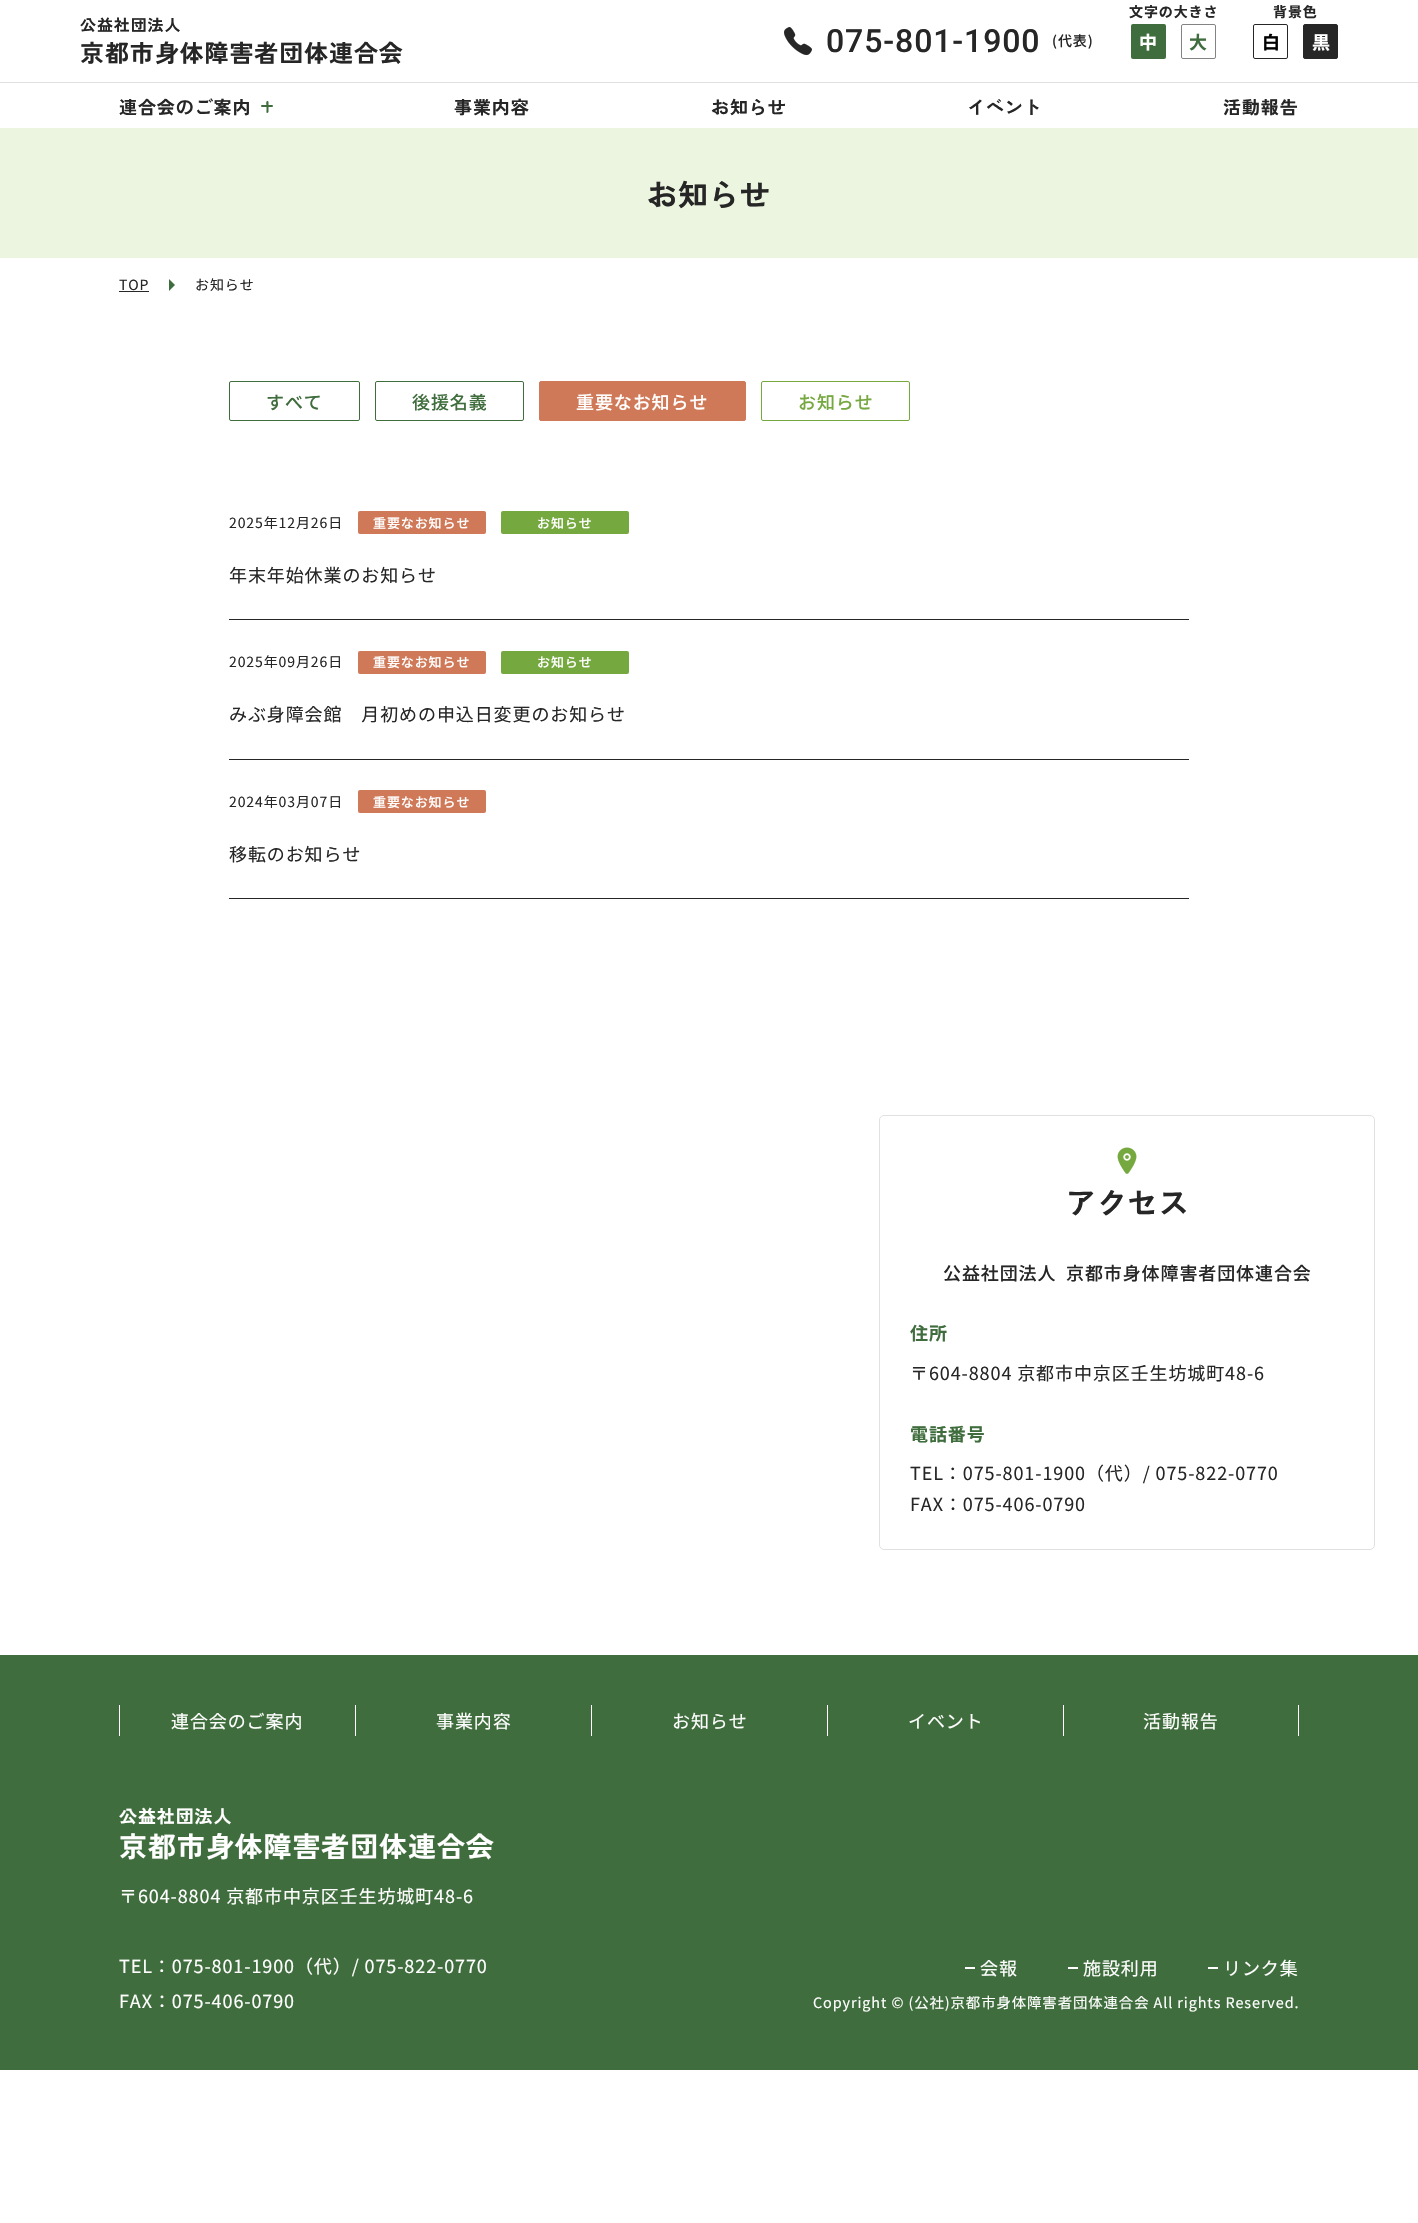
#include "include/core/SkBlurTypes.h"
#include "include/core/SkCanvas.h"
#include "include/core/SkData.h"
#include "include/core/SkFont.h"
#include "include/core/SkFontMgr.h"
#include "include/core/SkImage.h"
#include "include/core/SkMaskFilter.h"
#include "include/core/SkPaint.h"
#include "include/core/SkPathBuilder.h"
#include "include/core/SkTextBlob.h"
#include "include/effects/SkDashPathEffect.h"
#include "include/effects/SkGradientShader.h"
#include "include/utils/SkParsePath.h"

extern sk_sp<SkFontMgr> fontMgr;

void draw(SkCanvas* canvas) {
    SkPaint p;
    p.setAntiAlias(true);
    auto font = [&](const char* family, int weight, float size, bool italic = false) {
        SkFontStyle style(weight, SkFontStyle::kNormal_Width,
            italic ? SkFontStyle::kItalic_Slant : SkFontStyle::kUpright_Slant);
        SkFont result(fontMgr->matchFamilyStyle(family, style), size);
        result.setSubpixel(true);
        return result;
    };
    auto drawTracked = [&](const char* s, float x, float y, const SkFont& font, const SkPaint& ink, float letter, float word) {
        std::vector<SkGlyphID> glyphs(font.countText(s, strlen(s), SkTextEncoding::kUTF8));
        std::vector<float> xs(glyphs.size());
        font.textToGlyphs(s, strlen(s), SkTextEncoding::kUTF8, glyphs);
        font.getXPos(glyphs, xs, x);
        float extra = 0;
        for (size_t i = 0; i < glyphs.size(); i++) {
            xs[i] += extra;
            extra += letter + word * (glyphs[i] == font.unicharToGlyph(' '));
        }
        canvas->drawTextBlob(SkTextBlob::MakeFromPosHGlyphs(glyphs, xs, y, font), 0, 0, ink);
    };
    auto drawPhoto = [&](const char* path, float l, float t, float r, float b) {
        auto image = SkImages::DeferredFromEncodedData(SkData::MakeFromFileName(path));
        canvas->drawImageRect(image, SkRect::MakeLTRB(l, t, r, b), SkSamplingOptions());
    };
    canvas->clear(0xFFFFFFFF);
    p.setColor(0xFFE1E1E1);
    canvas->drawRect(SkRect::MakeLTRB(0, 82, 1418, 83), p);
    auto font1 = font("Zen Kaku Gothic Antique", 700, 16);
    p.setColor(0xFF262626);
    drawTracked("公益社団法人", 80, 31, font1, p, 0.9f, 0);
    auto font2 = font("Zen Kaku Gothic Antique", 700, 24);
    drawTracked("京都市身体障害者団体連合会", 80, 62, font2, p, 0.9f, 0);
    drawPhoto("media/1.png", 784, 27, 812, 56);
    auto font3 = font("Roboto", 500, 32);
    drawTracked("075-801-1900", 826, 52, font3, p, 0.9f, 0);
    auto font4 = font("Noto Sans JP", 500, 14);
    drawTracked("(代表)", 1052, 46, font4, p, 0.9f, 0);
    auto font5 = font("Noto Sans JP", 700, 14);
    drawTracked("文字の大きさ", 1129, 17, font5, p, 0.9f, 0);
    p.setColor(0xFF406D3D);
    canvas->drawRoundRect(SkRect::MakeLTRB(1131, 24, 1166, 59), 2, 2, p);
    auto font6 = font("Noto Sans JP", 700, 18);
    p.setColor(0xFFFFFFFF);
    canvas->drawString("中", 1139, 49, font6, p);
    p.setStyle(SkPaint::kStroke_Style);
    p.setStrokeWidth(1);
    p.setColor(0xFF838383);
    canvas->drawRoundRect(SkRect::MakeLTRB(1181.5f, 24.5f, 1215.5f, 58.5f), 1.5f, 1.5f, p);
    p.setStyle(SkPaint::kFill_Style);
    p.setColor(0xFF406D3D);
    canvas->drawString("大", 1189, 49, font6, p);
    p.setColor(0xFF262626);
    drawTracked("背景色", 1273, 17, font5, p, 0.9f, 0);
    p.setStyle(SkPaint::kStroke_Style);
    canvas->drawRoundRect(SkRect::MakeLTRB(1253.5f, 24.5f, 1287.5f, 58.5f), 1.5f, 1.5f, p);
    p.setStyle(SkPaint::kFill_Style);
    p.setColor(0xFF000000);
    canvas->drawString("白", 1262, 49, font6, p);
    p.setColor(0xFF262626);
    canvas->drawRoundRect(SkRect::MakeLTRB(1303.5f, 24.5f, 1337.5f, 58.5f), 1.5f, 1.5f, p);
    p.setStyle(SkPaint::kStroke_Style);
    canvas->drawRoundRect(SkRect::MakeLTRB(1303.5f, 24.5f, 1337.5f, 58.5f), 1.5f, 1.5f, p);
    p.setStyle(SkPaint::kFill_Style);
    p.setColor(0xFFFFFFFF);
    canvas->drawString("黒", 1312, 49, font6, p);
    auto font7 = font("Zen Kaku Gothic Antique", 700, 18);
    p.setColor(0xFF262626);
    drawTracked("連合会のご案内", 119, 114, font7, p, 0.9f, 0);
    p.setColor(0xFF406D3D);
    canvas->drawRoundRect(SkRect::MakeLTRB(261, 105, 273, 107), 1, 1, p);
    canvas->drawPath(SkPathBuilder().moveTo(268.5f, 102).lineTo(268.5f, 112).lineTo(267.5f, 113).cubicTo(266, 113.5f, 266.5f, 111, 266.5f, 110.5f).lineTo(266.5f, 105.5f).cubicTo(266.5f, 104.5f, 265.5f, 101, 267.5f, 101).cubicTo(268, 101, 268.5f, 101.5f, 268.5f, 102).close().detach(), p);
    p.setColor(0xFF262626);
    {
        const struct { const char* s; float x, y; } items[] = {
            {"事業内容", 454, 114},
            {"お知らせ", 711, 114},
            {"イベント", 967, 114},
            {"活動報告", 1223, 114},
        };
        for (auto [s, x, y] : items) {
            drawTracked(s, x, y, font7, p, 0.9f, 0);
        }
    }
    p.setColor(0xFFECF5DF);
    canvas->drawRect(SkRect::MakeLTRB(0, 128, 1418, 258), p);
    auto font8 = font("Zen Kaku Gothic Antique", 700, 30);
    p.setColor(0xFF262626);
    drawTracked("お知らせ", 647, 206, font8, p, 0.9f, 0);
    auto font9 = font("Noto Sans JP", 400, 14);
    drawTracked("TOP", 119, 290, font9, p, 0.9f, 0);
    canvas->drawRect(SkRect::MakeLTRB(119, 291, 149, 292), p);
    p.setColor(0xFF406D3D);
    canvas->drawPath(SkPathBuilder().moveTo(169, 291).lineTo(169, 279).lineTo(175, 285).close().detach(), p);
    p.setColor(0xFF262626);
    drawTracked("お知らせ", 195, 290, font9, p, 0.9f, 0);
    p.setStyle(SkPaint::kStroke_Style);
    p.setColor(0xFF406D3D);
    canvas->drawRoundRect(SkRect::MakeLTRB(229.5f, 381.5f, 359.5f, 420.5f), 1.5f, 1.5f, p);
    auto font10 = font("Noto Sans JP", 500, 18);
    p.setStyle(SkPaint::kFill_Style);
    drawTracked("すべて", 266, 409, font10, p, 0.9f, 0);
    p.setStyle(SkPaint::kStroke_Style);
    canvas->drawRoundRect(SkRect::MakeLTRB(375.5f, 381.5f, 523.5f, 420.5f), 1.5f, 1.5f, p);
    p.setStyle(SkPaint::kFill_Style);
    drawTracked("後援名義", 412, 409, font10, p, 0.9f, 0);
    p.setColor(0xFFCF7958);
    canvas->drawRoundRect(SkRect::MakeLTRB(539.5f, 381.5f, 745.5f, 420.5f), 1.5f, 1.5f, p);
    p.setStyle(SkPaint::kStroke_Style);
    canvas->drawRoundRect(SkRect::MakeLTRB(539.5f, 381.5f, 745.5f, 420.5f), 1.5f, 1.5f, p);
    p.setStyle(SkPaint::kFill_Style);
    p.setColor(0xFFFFFFFF);
    drawTracked("重要なお知らせ", 576, 409, font10, p, 0.9f, 0);
    p.setStyle(SkPaint::kStroke_Style);
    p.setColor(0xFF76A840);
    canvas->drawRoundRect(SkRect::MakeLTRB(761.5f, 381.5f, 909.5f, 420.5f), 1.5f, 1.5f, p);
    p.setStyle(SkPaint::kFill_Style);
    drawTracked("お知らせ", 798, 409, font10, p, 0.9f, 0);
    p.setColor(0xFF262626);
    canvas->drawRect(SkRect::MakeLTRB(229, 619, 1189, 620), p);
    drawTracked("2025年12月26日", 229, 528, font9, p, 0.9f, 0);
    p.setColor(0xFFCF7958);
    canvas->drawRoundRect(SkRect::MakeLTRB(358, 511, 486, 534), 2, 2, p);
    auto font11 = font("Noto Sans JP", 500, 13);
    p.setColor(0xFFFFFFFF);
    drawTracked("重要なお知らせ", 373, 528, font11, p, 0.9f, 0);
    p.setColor(0xFF76A840);
    canvas->drawRoundRect(SkRect::MakeLTRB(501, 511, 629, 534), 2, 2, p);
    p.setColor(0xFFFFFFFF);
    drawTracked("お知らせ", 537, 528, font11, p, 0.9f, 0);
    auto font12 = font("Noto Sans JP", 400, 18);
    p.setColor(0xFF262626);
    drawTracked("年末年始休業のお知らせ", 229, 582, font12, p, 0.9f, 0);
    canvas->drawRect(SkRect::MakeLTRB(229, 759, 1189, 760), p);
    drawTracked("2025年09月26日", 229, 667, font9, p, 0.9f, 0);
    p.setColor(0xFFCF7958);
    canvas->drawRoundRect(SkRect::MakeLTRB(358, 651, 486, 674), 2, 2, p);
    p.setColor(0xFFFFFFFF);
    drawTracked("重要なお知らせ", 373, 667, font11, p, 0.9f, 0);
    p.setColor(0xFF76A840);
    canvas->drawRoundRect(SkRect::MakeLTRB(501, 651, 629, 674), 2, 2, p);
    p.setColor(0xFFFFFFFF);
    drawTracked("お知らせ", 537, 667, font11, p, 0.9f, 0);
    p.setColor(0xFF262626);
    drawTracked("みぶ身障会館　月初めの申込日変更のお知らせ", 229, 721, font12, p, 0.9f, 0);
    canvas->drawRect(SkRect::MakeLTRB(229, 898, 1189, 899), p);
    drawTracked("2024年03月07日", 229, 807, font9, p, 0.9f, 0);
    p.setColor(0xFFCF7958);
    canvas->drawRoundRect(SkRect::MakeLTRB(358, 790, 486, 813), 2, 2, p);
    p.setColor(0xFFFFFFFF);
    drawTracked("重要なお知らせ", 373, 807, font11, p, 0.9f, 0);
    p.setColor(0xFF262626);
    drawTracked("移転のお知らせ", 229, 861, font12, p, 0.9f, 0);
    p.setStyle(SkPaint::kStroke_Style);
    p.setColor(0xFFE1E1E1);
    canvas->drawRoundRect(SkRect::MakeLTRB(879.5f, 1115.5f, 1374.5f, 1549.5f), 4.5f, 4.5f, p);
    drawPhoto("media/2.png", 1117, 1147, 1137, 1174);
    p.setStyle(SkPaint::kFill_Style);
    p.setColor(0xFF262626);
    drawTracked("アクセス", 1066, 1214, font8, p, 0.9f, 0);
    drawTracked("公益社団法人", 943, 1280, font10, p, 0.9f, 0);
    drawTracked("京都市身体障害者団体連合会", 1066, 1280, font10, p, 0.9f, 0);
    p.setColor(0xFF406D3D);
    drawTracked("住所", 910, 1340, font6, p, 0.9f, 0);
    p.setColor(0xFF262626);
    drawTracked("〒604-8804 京都市中京区壬生坊城町48-6", 910, 1380, font12, p, 0.9f, 0);
    p.setColor(0xFF406D3D);
    drawTracked("電話番号", 910, 1441, font6, p, 0.9f, 0);
    p.setColor(0xFF262626);
    drawTracked("TEL：075-801-1900（代）/ 075-822-0770", 910, 1480, font12, p, 0.9f, 0);
    drawTracked("FAX：075-406-0790", 910, 1511, font12, p, 0.9f, 0);
    p.setColor(0xFF406D3D);
    canvas->drawRect(SkRect::MakeLTRB(0, 1655, 1418, 2070), p);
    p.setColor(0xFFFFFFFF);
    canvas->drawRect(SkRect::MakeLTRB(119, 1705, 120, 1736), p);
    drawTracked("連合会のご案内", 171, 1728, font12, p, 0.9f, 0);
    canvas->drawRect(SkRect::MakeLTRB(355, 1705, 356, 1736), p);
    drawTracked("事業内容", 436, 1728, font12, p, 0.9f, 0);
    canvas->drawRect(SkRect::MakeLTRB(591, 1705, 592, 1736), p);
    drawTracked("お知らせ", 672, 1728, font12, p, 0.9f, 0);
    canvas->drawRect(SkRect::MakeLTRB(827, 1705, 828, 1736), p);
    drawTracked("イベント", 908, 1728, font12, p, 0.9f, 0);
    canvas->drawRect(SkRect::MakeLTRB(1298, 1705, 1299, 1736), p);
    canvas->drawRect(SkRect::MakeLTRB(1063, 1705, 1064, 1736), p);
    drawTracked("活動報告", 1143, 1728, font12, p, 0.9f, 0);
    drawTracked("公益社団法人", 119, 1823, font7, p, 0.9f, 0);
    auto font13 = font("Zen Kaku Gothic Antique", 700, 28);
    drawTracked("京都市身体障害者団体連合会", 119, 1857, font13, p, 0.9f, 0);
    drawTracked("〒604-8804 京都市中京区壬生坊城町48-6", 119, 1903, font12, p, 0.9f, 0);
    drawTracked("TEL：075-801-1900（代）/ 075-822-0770", 119, 1973, font12, p, 0.9f, 0);
    canvas->drawRect(SkRect::MakeLTRB(965, 1967, 975, 1969), p);
    drawTracked("会報", 980, 1975, font12, p, 0.9f, 0);
    canvas->drawRect(SkRect::MakeLTRB(1068, 1967, 1078, 1969), p);
    drawTracked("施設利用", 1083, 1975, font12, p, 0.9f, 0);
    canvas->drawRect(SkRect::MakeLTRB(1208, 1967, 1218, 1969), p);
    drawTracked("リンク集", 1223, 1975, font12, p, 0.9f, 0);
    drawTracked("FAX：075-406-0790", 119, 2008, font12, p, 0.9f, 0);
    auto font14 = font("Noto Sans JP", 400, 14.4f);
    drawTracked("Copyright © (公社)京都市身体障害者団体連合会 All rights Reserved.", 813, 2008, font14, p, 0.9f, 0);
}
